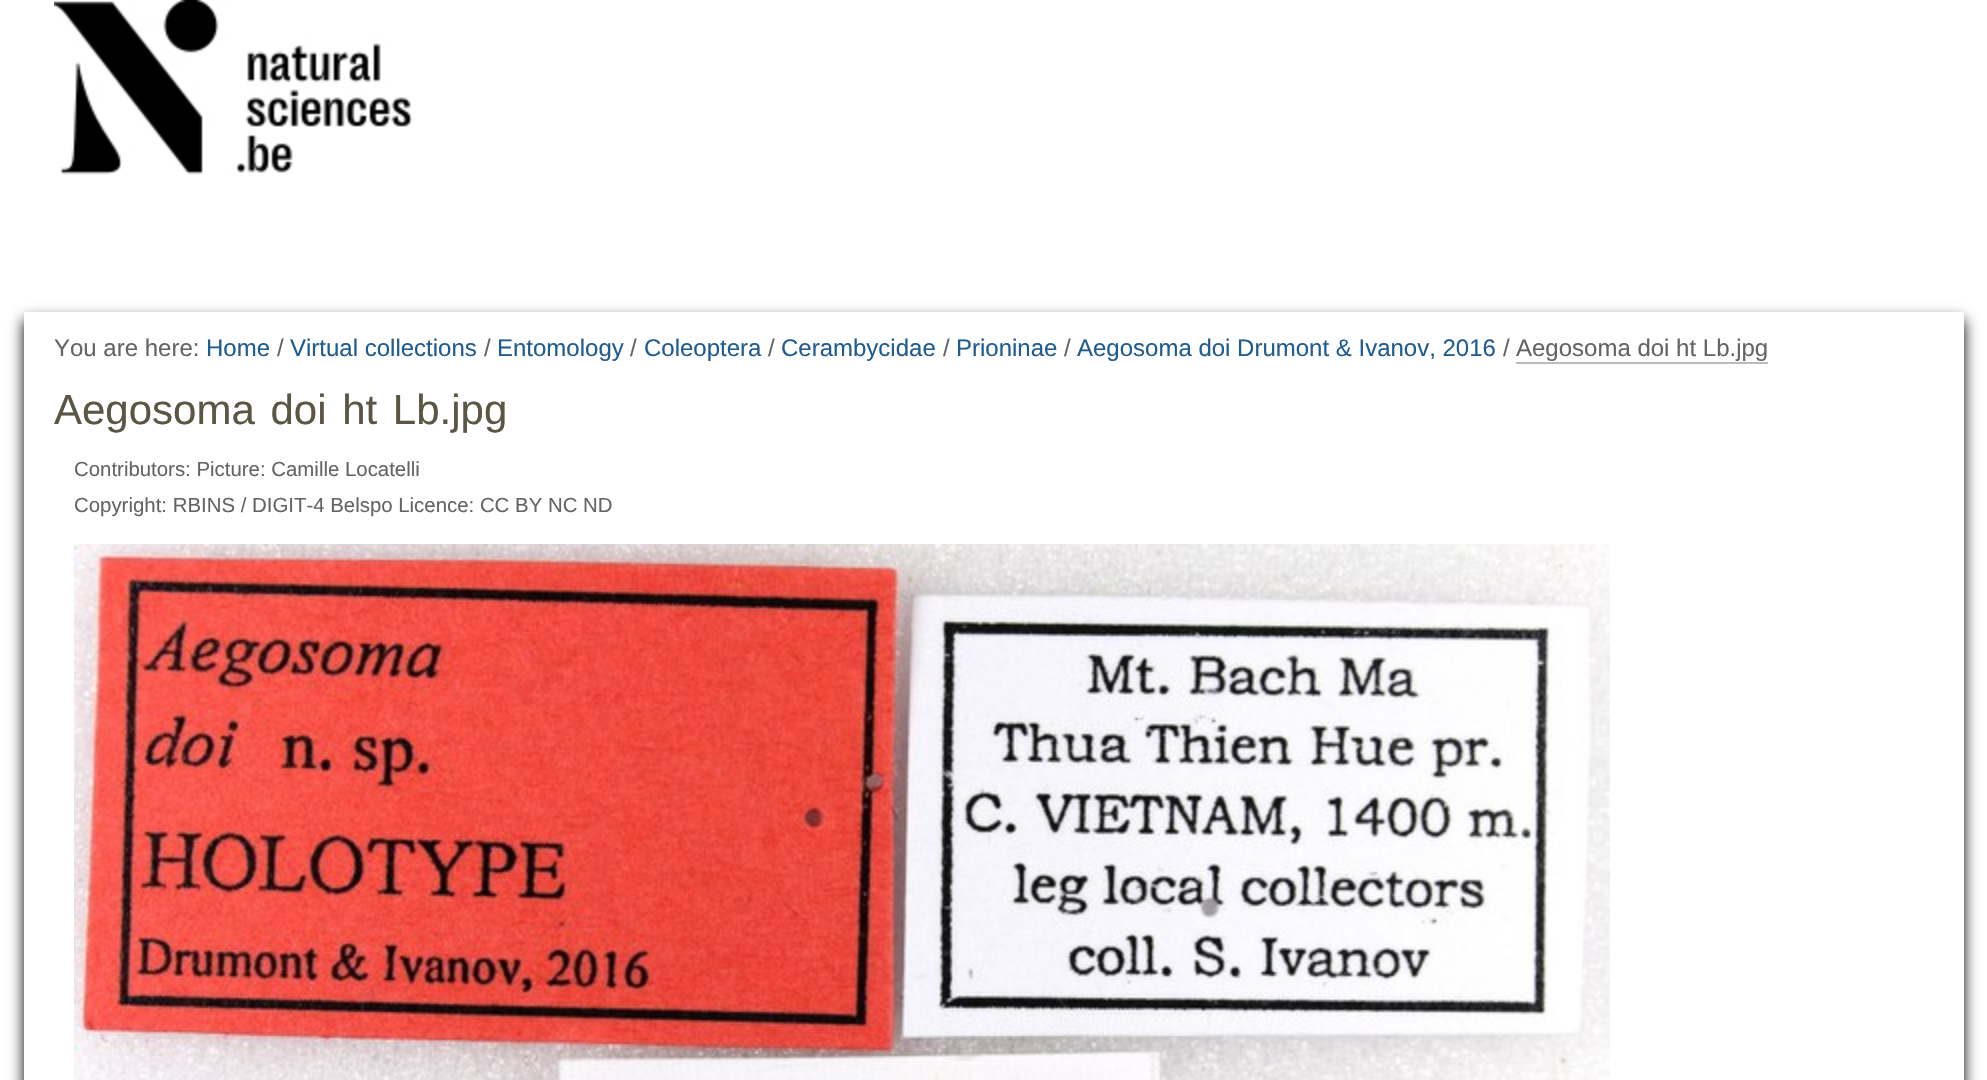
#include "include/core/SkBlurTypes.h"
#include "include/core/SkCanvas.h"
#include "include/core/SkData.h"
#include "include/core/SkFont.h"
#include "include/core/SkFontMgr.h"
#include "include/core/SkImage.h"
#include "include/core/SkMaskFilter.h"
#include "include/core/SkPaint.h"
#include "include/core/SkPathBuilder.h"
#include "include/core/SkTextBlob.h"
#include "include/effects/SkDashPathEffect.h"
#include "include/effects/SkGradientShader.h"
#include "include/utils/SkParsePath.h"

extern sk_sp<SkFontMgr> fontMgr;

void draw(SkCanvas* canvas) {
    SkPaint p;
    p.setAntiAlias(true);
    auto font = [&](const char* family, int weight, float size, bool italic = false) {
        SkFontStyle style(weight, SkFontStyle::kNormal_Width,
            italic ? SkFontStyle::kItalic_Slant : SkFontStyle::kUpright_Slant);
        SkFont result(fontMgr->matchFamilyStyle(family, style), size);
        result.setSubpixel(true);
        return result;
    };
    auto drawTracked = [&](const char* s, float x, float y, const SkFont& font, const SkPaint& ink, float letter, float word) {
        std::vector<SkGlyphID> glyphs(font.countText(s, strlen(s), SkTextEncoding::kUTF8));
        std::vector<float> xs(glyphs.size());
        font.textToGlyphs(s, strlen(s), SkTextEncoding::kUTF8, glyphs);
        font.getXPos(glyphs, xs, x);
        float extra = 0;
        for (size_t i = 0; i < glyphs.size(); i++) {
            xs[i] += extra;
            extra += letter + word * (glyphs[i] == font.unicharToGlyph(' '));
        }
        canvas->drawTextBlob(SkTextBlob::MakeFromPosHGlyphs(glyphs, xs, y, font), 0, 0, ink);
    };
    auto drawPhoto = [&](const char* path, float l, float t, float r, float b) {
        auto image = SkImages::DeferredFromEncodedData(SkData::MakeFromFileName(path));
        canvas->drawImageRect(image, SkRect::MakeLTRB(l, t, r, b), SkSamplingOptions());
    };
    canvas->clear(0xFFFFFFFF);
    drawPhoto("media/1.png", 54, 0, 413, 175);
    canvas->save();
    canvas->clipPath(SkPathBuilder(SkPathFillType::kEvenOdd).moveTo(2, 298).lineTo(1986, 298).lineTo(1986, 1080).lineTo(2, 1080).close().moveTo(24, 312).lineTo(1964, 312).lineTo(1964, 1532).lineTo(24, 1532).close().detach(), true);
    p.setColor(0xFF000000);
    p.setMaskFilter(SkMaskFilter::MakeBlur(kNormal_SkBlurStyle, 7));
    canvas->drawRect(SkRect::MakeLTRB(24, 320, 1964, 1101), p);
    p.setMaskFilter(nullptr);
    canvas->restore();
    auto font1 = font("Liberation Sans", 400, 24);
    p.setColor(0xFF636466);
    canvas->drawString("You are here:", 54, 356, font1, p);
    p.setColor(0xFF205C90);
    canvas->drawString("Home", 206, 356, font1, p);
    p.setColor(0xFF636466);
    canvas->drawString("/", 277, 356, font1, p);
    p.setColor(0xFF205C90);
    canvas->drawString("Virtual collections", 290, 356, font1, p);
    p.setColor(0xFF636466);
    canvas->drawString("/", 484, 356, font1, p);
    p.setColor(0xFF205C90);
    canvas->drawString("Entomology", 497, 356, font1, p);
    p.setColor(0xFF636466);
    canvas->drawString("/", 630, 356, font1, p);
    p.setColor(0xFF205C90);
    canvas->drawString("Coleoptera", 644, 356, font1, p);
    p.setColor(0xFF636466);
    canvas->drawString("/", 768, 356, font1, p);
    p.setColor(0xFF205C90);
    canvas->drawString("Cerambycidae", 781, 356, font1, p);
    p.setColor(0xFF636466);
    canvas->drawString("/", 943, 356, font1, p);
    p.setColor(0xFF205C90);
    canvas->drawString("Prioninae", 956, 356, font1, p);
    p.setColor(0xFF636466);
    canvas->drawString("/", 1064, 356, font1, p);
    p.setColor(0xFF205C90);
    canvas->drawString("Aegosoma doi Drumont & Ivanov, 2016", 1077, 356, font1, p);
    p.setColor(0xFF636466);
    canvas->drawString("/", 1503, 356, font1, p);
    canvas->drawString("Aegosoma doi ht Lb.jpg", 1516, 356, font1, p);
    p.setColor(0xFFBBBBBB);
    canvas->drawRect(SkRect::MakeLTRB(1516, 362, 1768, 364), p);
    auto font2 = font("Liberation Sans", 400, 42);
    p.setColor(0xFF5B5644);
    drawTracked("Aegosoma doi ht Lb.jpg", 54, 424, font2, p, 0, 4);
    auto font3 = font("Liberation Sans", 400, 20.4f);
    p.setColor(0xFF636466);
    canvas->drawString("Contributors: Picture: Camille Locatelli", 74, 476, font3, p);
    canvas->drawString("Copyright: RBINS / DIGIT-4 Belspo Licence: CC BY NC ND", 74, 512, font3, p);
    drawPhoto("media/2.png", 74, 544, 1610, 1080);
}
